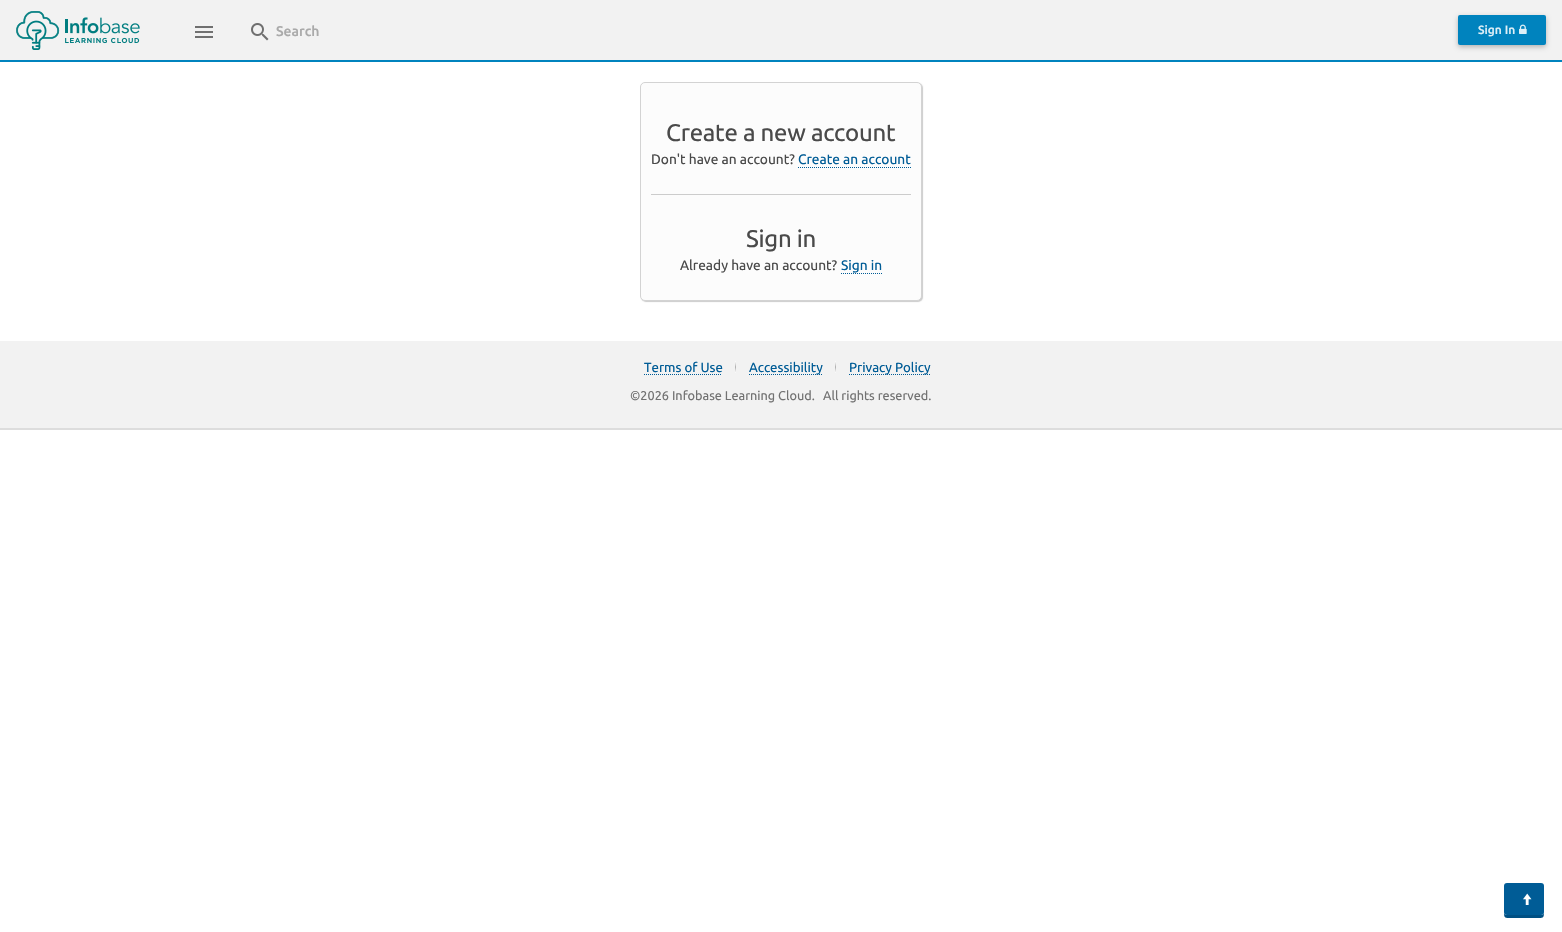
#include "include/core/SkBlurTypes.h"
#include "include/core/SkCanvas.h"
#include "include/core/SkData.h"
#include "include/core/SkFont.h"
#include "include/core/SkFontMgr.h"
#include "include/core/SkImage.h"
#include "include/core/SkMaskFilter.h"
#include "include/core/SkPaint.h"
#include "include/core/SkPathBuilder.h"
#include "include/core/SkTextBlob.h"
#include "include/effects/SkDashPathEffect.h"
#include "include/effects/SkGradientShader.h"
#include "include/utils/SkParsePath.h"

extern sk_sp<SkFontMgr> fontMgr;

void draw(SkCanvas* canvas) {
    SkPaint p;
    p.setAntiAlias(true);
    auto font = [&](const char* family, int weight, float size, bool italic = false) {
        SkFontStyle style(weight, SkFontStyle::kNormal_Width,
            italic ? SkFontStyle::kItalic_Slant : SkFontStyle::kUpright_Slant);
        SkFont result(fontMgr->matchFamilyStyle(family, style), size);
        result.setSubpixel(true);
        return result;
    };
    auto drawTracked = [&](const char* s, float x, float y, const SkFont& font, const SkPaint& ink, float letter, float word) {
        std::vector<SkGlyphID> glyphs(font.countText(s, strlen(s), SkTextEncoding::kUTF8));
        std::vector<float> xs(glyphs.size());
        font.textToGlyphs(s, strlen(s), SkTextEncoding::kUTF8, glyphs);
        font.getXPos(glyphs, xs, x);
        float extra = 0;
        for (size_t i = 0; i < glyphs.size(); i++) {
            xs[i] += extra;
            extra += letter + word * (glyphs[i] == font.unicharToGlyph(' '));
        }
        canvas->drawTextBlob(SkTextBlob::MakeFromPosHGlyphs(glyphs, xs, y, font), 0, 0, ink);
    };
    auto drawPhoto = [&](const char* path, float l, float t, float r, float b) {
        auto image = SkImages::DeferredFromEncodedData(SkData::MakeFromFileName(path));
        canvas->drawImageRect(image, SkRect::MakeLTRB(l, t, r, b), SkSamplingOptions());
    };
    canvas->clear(0xFFFFFFFF);
    p.setColor(0xFFF2F2F2);
    canvas->drawRect(SkRect::MakeLTRB(0, 0, 1562, 60), p);
    p.setColor(0xFF0083BE);
    canvas->drawRect(SkRect::MakeLTRB(0, 60, 1562, 62), p);
    drawPhoto("media/1.png", 16, 11, 140, 50);
    drawPhoto("media/2.png", 195, 26, 213, 38);
    drawPhoto("media/3.png", 251, 23, 269, 41);
    auto font1 = font("Ubuntu", 500, 14);
    p.setColor(0xFFAAAAAA);
    canvas->drawString("Search", 276, 36, font1, p);
    p.setColor(0x42000000);
    p.setMaskFilter(SkMaskFilter::MakeBlur(kNormal_SkBlurStyle, 2.5f));
    canvas->drawRoundRect(SkRect::MakeLTRB(1458, 17, 1546, 47), 2, 2, p);
    p.setMaskFilter(nullptr);
    p.setColor(0xFF0083BE);
    canvas->drawRoundRect(SkRect::MakeLTRB(1458, 15, 1546, 45), 2, 2, p);
    auto font2 = font("Ubuntu", 500, 12);
    p.setColor(0xFFDEEFF7);
    canvas->drawString("Sign In", 1478, 34, font2, p);
    drawPhoto("media/4.png", 1519, 24, 1527, 34);
    p.setColor(0x33000000);
    p.setMaskFilter(SkMaskFilter::MakeBlur(kNormal_SkBlurStyle, 0.5f));
    canvas->drawRoundRect(SkRect::MakeLTRB(641, 83, 923, 302), 5, 5, p);
    p.setMaskFilter(nullptr);
    p.setColor(0xFFFCFCFC);
    canvas->drawRoundRect(SkRect::MakeLTRB(640.5f, 82.5f, 921.5f, 300.5f), 4.5f, 4.5f, p);
    p.setStyle(SkPaint::kStroke_Style);
    p.setStrokeWidth(1);
    p.setColor(0xFFD3D3D3);
    canvas->drawRoundRect(SkRect::MakeLTRB(640.5f, 82.5f, 921.5f, 300.5f), 4.5f, 4.5f, p);
    p.setStyle(SkPaint::kFill_Style);
    p.setColor(0xFFCCCCCC);
    canvas->drawRect(SkRect::MakeLTRB(651, 194, 911, 195), p);
    auto font3 = font("Ubuntu", 400, 24);
    p.setColor(0xFF4A4A4A);
    drawTracked("Create a new account", 666, 141, font3, p, -0.25f, 0);
    auto font4 = font("Ubuntu", 400, 13.75f);
    canvas->drawString("Don't have an account?", 651, 164, font4, p);
    p.setColor(0xFF005C96);
    canvas->drawString("Create an account", 798, 164, font4, p);
    p.setStyle(SkPaint::kStroke_Style);
    p.setPathEffect(SkDashPathEffect::Make({{1, 1}}, 0));
    canvas->drawPath(SkPathBuilder().moveTo(798, 167.5f).lineTo(911, 167.5f).detach(), p);
    p.setPathEffect(nullptr);
    p.setStyle(SkPaint::kFill_Style);
    p.setColor(0xFF4A4A4A);
    drawTracked("Sign in", 746, 247, font3, p, -0.25f, 0);
    canvas->drawString("Already have an account?", 680, 270, font4, p);
    p.setColor(0xFF005C96);
    canvas->drawString("Sign in", 841, 270, font4, p);
    p.setStyle(SkPaint::kStroke_Style);
    p.setPathEffect(SkDashPathEffect::Make({{1, 1}}, 0));
    canvas->drawPath(SkPathBuilder().moveTo(841, 273.5f).lineTo(882, 273.5f).detach(), p);
    p.setPathEffect(nullptr);
    p.setStyle(SkPaint::kFill_Style);
    p.setColor(0xFFF2F2F2);
    canvas->drawRect(SkRect::MakeLTRB(0, 341, 1562, 428), p);
    p.setColor(0xFFDDDDDD);
    canvas->drawRect(SkRect::MakeLTRB(0, 428, 1562, 430), p);
    auto font5 = font("Ubuntu", 400, 13.25f);
    p.setColor(0xFF005C96);
    canvas->drawString("Terms of Use", 644, 372, font5, p);
    p.setStyle(SkPaint::kStroke_Style);
    p.setPathEffect(SkDashPathEffect::Make({{1, 1}}, 0));
    canvas->drawPath(SkPathBuilder().moveTo(644, 374.5f).lineTo(722, 374.5f).detach(), p);
    p.setPathEffect(nullptr);
    drawPhoto("media/5.png", 735, 361, 736, 373);
    p.setPathEffect(SkDashPathEffect::Make({{1, 1}}, 0));
    canvas->drawPath(SkPathBuilder().moveTo(749, 374.5f).lineTo(822, 374.5f).detach(), p);
    p.setPathEffect(nullptr);
    p.setStyle(SkPaint::kFill_Style);
    canvas->drawString("Accessibility", 749, 372, font5, p);
    drawPhoto("media/5.png", 835, 361, 836, 373);
    p.setStyle(SkPaint::kStroke_Style);
    p.setPathEffect(SkDashPathEffect::Make({{1, 1}}, 0));
    canvas->drawPath(SkPathBuilder().moveTo(849, 374.5f).lineTo(930, 374.5f).detach(), p);
    p.setPathEffect(nullptr);
    p.setStyle(SkPaint::kFill_Style);
    canvas->drawString("Privacy Policy", 849, 372, font5, p);
    auto font6 = font("Ubuntu", 400, 12.7f);
    p.setColor(0xFF727272);
    canvas->drawString("©2026 Infobase Learning Cloud.", 630, 400, font6, p);
    canvas->drawString("All rights reserved.", 823, 400, font6, p);
    p.setColor(0xFF005083);
    canvas->drawPath(SkPathBuilder().moveTo(1504, 912).cubicTo(1504, 919, 1505, 918, 1513, 918).lineTo(1535, 918).cubicTo(1543, 918, 1544, 919, 1544, 912).cubicTo(1544, 914, 1543, 915, 1541, 915).lineTo(1507, 915).cubicTo(1505, 915, 1504, 914, 1504, 912).close().detach(), p);
    p.setColor(0xFF005C96);
    canvas->drawRoundRect(SkRect::MakeLTRB(1504, 883, 1544, 915), 3, 3, p);
    drawPhoto("media/6.png", 1523, 893, 1532, 905);
}
